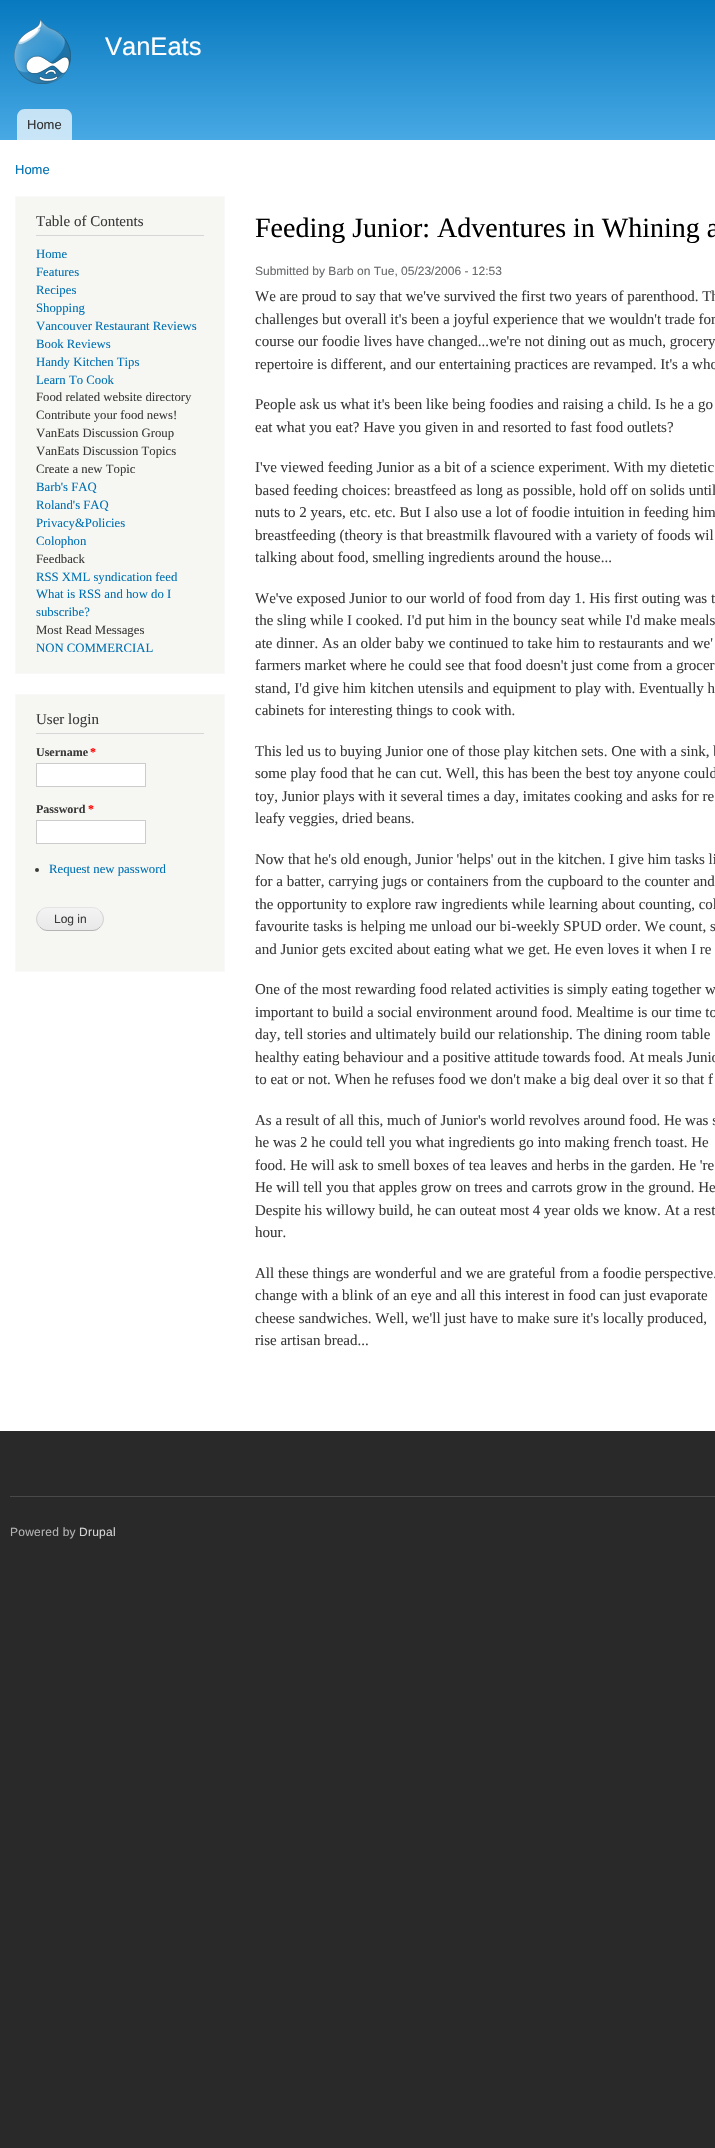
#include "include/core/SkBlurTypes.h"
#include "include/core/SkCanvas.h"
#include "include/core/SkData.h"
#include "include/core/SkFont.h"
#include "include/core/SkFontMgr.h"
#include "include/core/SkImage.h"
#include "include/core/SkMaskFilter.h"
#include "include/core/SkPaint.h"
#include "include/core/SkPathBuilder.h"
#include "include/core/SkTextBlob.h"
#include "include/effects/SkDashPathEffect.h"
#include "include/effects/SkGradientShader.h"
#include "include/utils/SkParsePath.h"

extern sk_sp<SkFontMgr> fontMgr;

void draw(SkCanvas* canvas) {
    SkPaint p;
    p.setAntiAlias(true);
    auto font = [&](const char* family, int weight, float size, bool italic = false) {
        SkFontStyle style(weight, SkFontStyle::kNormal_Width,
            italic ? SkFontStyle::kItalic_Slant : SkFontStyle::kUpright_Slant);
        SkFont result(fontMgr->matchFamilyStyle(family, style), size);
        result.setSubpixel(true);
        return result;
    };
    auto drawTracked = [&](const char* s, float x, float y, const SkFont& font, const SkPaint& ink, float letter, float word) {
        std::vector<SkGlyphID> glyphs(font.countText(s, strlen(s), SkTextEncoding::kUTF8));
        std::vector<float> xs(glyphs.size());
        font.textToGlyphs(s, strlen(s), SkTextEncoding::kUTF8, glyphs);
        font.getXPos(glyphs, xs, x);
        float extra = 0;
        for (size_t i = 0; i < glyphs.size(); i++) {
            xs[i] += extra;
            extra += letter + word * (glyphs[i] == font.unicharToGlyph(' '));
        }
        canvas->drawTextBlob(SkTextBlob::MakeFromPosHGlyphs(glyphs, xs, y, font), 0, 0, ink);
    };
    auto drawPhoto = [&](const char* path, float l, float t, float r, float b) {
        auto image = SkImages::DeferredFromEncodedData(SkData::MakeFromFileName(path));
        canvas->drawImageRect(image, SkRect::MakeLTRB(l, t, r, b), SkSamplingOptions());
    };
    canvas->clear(0xFF292929);
    p.setColor(0xFFFFFFFF);
    canvas->drawRect(SkRect::MakeLTRB(0, 140, 715, 1431), p);
    {
        const SkColor colors[] = {0xFF0779BF, 0xFF48A9E4};
        const float stops[] = {0, 1};
        const SkPoint ends[] = {{480, 0}, {480, 140}};
        p.setShader(SkGradientShader::MakeLinear(ends, colors, stops, 2, SkTileMode::kClamp));
        p.setAlpha(255);
    }
    canvas->drawRect(SkRect::MakeLTRB(0, 0, 715, 140), p);
    drawPhoto("media/1.png", 14, 19, 71, 84);
    auto font1 = font("Liberation Sans", 400, 25.5f);
    p.setShader(nullptr);
    p.setColor(0xFFFFFEFF);
    canvas->drawString("VanEats", 105, 55, font1, p);
    p.setColor(0xB3FFFFFF);
    canvas->drawPath(SkPathBuilder().moveTo(25, 109).lineTo(64, 109).cubicTo(68.5f, 109, 72, 112.5f, 72, 117).lineTo(72, 140).lineTo(17, 140).lineTo(17, 117).cubicTo(17, 112.5f, 20.5f, 109, 25, 109).close().detach(), p);
    auto font2 = font("Liberation Sans", 400, 13);
    p.setColor(0xFF333333);
    canvas->drawString("Home", 27, 129, font2, p);
    p.setColor(0xFF0071B3);
    canvas->drawString("Home", 15, 174, font2, p);
    p.setColor(0xFFF6F6F2);
    canvas->drawRect(SkRect::MakeLTRB(15.5f, 196.5f, 224.5f, 673.5f), p);
    p.setStyle(SkPaint::kStroke_Style);
    p.setStrokeWidth(1);
    p.setColor(0xFFF9F9F9);
    canvas->drawRect(SkRect::MakeLTRB(15.5f, 196.5f, 224.5f, 673.5f), p);
    p.setStyle(SkPaint::kFill_Style);
    p.setColor(0xFFD6D6D6);
    canvas->drawRect(SkRect::MakeLTRB(36, 235, 204, 236), p);
    auto font3 = font("Liberation Serif", 400, 15);
    p.setColor(0xFF3B3B3B);
    canvas->drawString("Table of Contents", 36, 226, font3, p);
    auto font4 = font("Liberation Serif", 400, 12.75f);
    p.setColor(0xFF0071B3);
    {
        const struct { const char* s; float x, y; } items[] = {
            {"Home", 36, 258},
            {"Features", 36, 276},
            {"Recipes", 36, 294},
            {"Shopping", 36, 312},
            {"Vancouver Restaurant Reviews", 36, 330},
            {"Book Reviews", 36, 348},
            {"Handy Kitchen Tips", 36, 366},
            {"Learn To Cook", 36, 384},
        };
        for (auto [s, x, y] : items) {
            canvas->drawString(s, x, y, font4, p);
        }
    }
    p.setColor(0xFF3B3B3B);
    {
        const struct { const char* s; float x, y; } items[] = {
            {"Food related website directory", 36, 401},
            {"Contribute your food news!", 36, 419},
            {"VanEats Discussion Group", 36, 437},
            {"VanEats Discussion Topics", 36, 455},
            {"Create a new Topic", 36, 473},
        };
        for (auto [s, x, y] : items) {
            canvas->drawString(s, x, y, font4, p);
        }
    }
    p.setColor(0xFF0071B3);
    {
        const struct { const char* s; float x, y; } items[] = {
            {"Barb's FAQ", 36, 491},
            {"Roland's FAQ", 36, 509},
            {"Privacy&Policies", 36, 527},
            {"Colophon", 36, 545},
        };
        for (auto [s, x, y] : items) {
            canvas->drawString(s, x, y, font4, p);
        }
    }
    p.setColor(0xFF3B3B3B);
    canvas->drawString("Feedback", 36, 563, font4, p);
    p.setColor(0xFF0071B3);
    {
        const struct { const char* s; float x, y; } items[] = {
            {"RSS XML syndication feed", 36, 581},
            {"What is RSS and how do I", 36, 598},
            {"subscribe?", 36, 616},
        };
        for (auto [s, x, y] : items) {
            canvas->drawString(s, x, y, font4, p);
        }
    }
    p.setColor(0xFF3B3B3B);
    canvas->drawString("Most Read Messages", 36, 634, font4, p);
    p.setColor(0xFF0071B3);
    canvas->drawString("NON COMMERCIAL", 36, 652, font4, p);
    p.setColor(0xFFF6F6F2);
    canvas->drawRect(SkRect::MakeLTRB(15.5f, 694.5f, 224.5f, 971.5f), p);
    p.setStyle(SkPaint::kStroke_Style);
    p.setColor(0xFFF9F9F9);
    canvas->drawRect(SkRect::MakeLTRB(15.5f, 694.5f, 224.5f, 971.5f), p);
    p.setStyle(SkPaint::kFill_Style);
    p.setColor(0xFFD6D6D6);
    canvas->drawRect(SkRect::MakeLTRB(36, 733, 204, 734), p);
    p.setColor(0xFF3B3B3B);
    canvas->drawString("User login", 36, 724, font3, p);
    auto font5 = font("Liberation Serif", 700, 12);
    canvas->drawString("Username", 36, 756, font5, p);
    p.setColor(0xFFFF0000);
    canvas->drawString("*", 90, 756, font5, p);
    p.setColor(0xFFFFFFFF);
    canvas->drawRect(SkRect::MakeLTRB(36.5f, 763.5f, 145.5f, 786.5f), p);
    p.setStyle(SkPaint::kStroke_Style);
    p.setColor(0xFFCCCCCC);
    canvas->drawRect(SkRect::MakeLTRB(36.5f, 763.5f, 145.5f, 786.5f), p);
    p.setStyle(SkPaint::kFill_Style);
    p.setColor(0xFF3B3B3B);
    canvas->drawString("Password", 36, 813, font5, p);
    p.setColor(0xFFFF0000);
    canvas->drawString("*", 88, 813, font5, p);
    p.setColor(0xFFFFFFFF);
    canvas->drawRect(SkRect::MakeLTRB(36.5f, 820.5f, 145.5f, 843.5f), p);
    p.setStyle(SkPaint::kStroke_Style);
    p.setColor(0xFFCCCCCC);
    canvas->drawRect(SkRect::MakeLTRB(36.5f, 820.5f, 145.5f, 843.5f), p);
    p.setStyle(SkPaint::kFill_Style);
    p.setColor(0xFF3B3B3B);
    canvas->drawCircle(37, 870, 2, p);
    p.setColor(0xFF0071B3);
    canvas->drawString("Request new password", 49, 873, font4, p);
    drawPhoto("media/2.png", 36, 908, 104, 931);
    p.setStyle(SkPaint::kStroke_Style);
    p.setColor(0xFFE4E4E4);
    canvas->drawPath(SkPathBuilder().moveTo(40, 911).cubicTo(42, 908.5f, 45, 907.5f, 48, 907.5f).lineTo(92, 907.5f).cubicTo(95, 907.5f, 98, 908.5f, 100, 911).detach(), p);
    p.setColor(0xFFD2D2D2);
    canvas->drawPath(SkPathBuilder().moveTo(100, 911).cubicTo(104.5f, 915.5f, 104.5f, 922.5f, 100, 927).detach(), p);
    p.setColor(0xFFB4B4B4);
    canvas->drawPath(SkPathBuilder().moveTo(100, 927).cubicTo(98, 929.5f, 95, 930.5f, 92, 930.5f).lineTo(48, 930.5f).cubicTo(45, 930.5f, 42, 929.5f, 40, 927).detach(), p);
    p.setColor(0xFFD2D2D2);
    canvas->drawPath(SkPathBuilder().moveTo(40, 927).cubicTo(35.5f, 922.5f, 35.5f, 915.5f, 40, 911).detach(), p);
    auto font6 = font("Liberation Sans", 400, 12);
    p.setStyle(SkPaint::kFill_Style);
    p.setColor(0xFF3B3B3B);
    canvas->drawString("Log in", 54, 923, font6, p);
    auto font7 = font("Liberation Serif", 400, 28);
    p.setColor(0xFF000000);
    canvas->drawString("Feeding Junior: Adventures in Whining a", 255, 237, font7, p);
    p.setColor(0xFF68696B);
    canvas->drawString("Submitted by Barb on Tue, 05/23/2006 - 12:53", 255, 275, font6, p);
    p.setColor(0xFF3B3B3B);
    {
        const struct { const char* s; float x, y; } items[] = {
            {"We are proud to say that we've survived the first two years of parenthood. Th", 255, 301},
            {"challenges but overall it's been a joyful experience that we wouldn't trade for", 255, 324},
            {"course our foodie lives have changed...we're not dining out as much, grocery", 255, 346},
            {"repertoire is different, and our entertaining practices are revamped. It's a who", 255, 369},
            {"People ask us what it's been like being foodies and raising a child. Is he a go", 255, 409},
            {"eat what you eat? Have you given in and resorted to fast food outlets?", 255, 432},
            {"I've viewed feeding Junior as a bit of a science experiment. With my dietetic", 255, 472},
            {"based feeding choices: breastfeed as long as possible, hold off on solids until", 255, 495},
            {"nuts to 2 years, etc. etc. But I also use a lot of foodie intuition in feeding him", 255, 517},
            {"breastfeeding (theory is that breastmilk flavoured with a variety of foods wil", 255, 540},
            {"talking about food, smelling ingredients around the house...", 255, 562},
            {"We've exposed Junior to our world of food from day 1. His first outing was t", 255, 603},
            {"the sling while I cooked. I'd put him in the bouncy seat while I'd make meals", 255, 625},
            {"ate dinner. As an older baby we continued to take him to restaurants and we'", 255, 648},
            {"farmers market where he could see that food doesn't just come from a grocer", 255, 670},
            {"stand, I'd give him kitchen utensils and equipment to play with. Eventually h", 255, 693},
            {"cabinets for interesting things to cook with.", 255, 715},
            {"This led us to buying Junior one of those play kitchen sets. One with a sink, b", 255, 756},
            {"some play food that he can cut. Well, this has been the best toy anyone could", 255, 778},
            {"toy, Junior plays with it several times a day, imitates cooking and asks for re", 255, 801},
            {"leafy veggies, dried beans.", 255, 823},
            {"Now that he's old enough, Junior 'helps' out in the kitchen. I give him tasks li", 255, 864},
            {"for a batter, carrying jugs or containers from the cupboard to the counter and", 255, 886},
            {"the opportunity to explore raw ingredients while learning about counting, col", 255, 909},
            {"favourite tasks is helping me unload our bi-weekly SPUD order. We count, s", 255, 931},
            {"and Junior gets excited about eating what we get. He even loves it when I re", 255, 954},
            {"One of the most rewarding food related activities is simply eating together w", 255, 994},
            {"important to build a social environment around food. Mealtime is our time to", 255, 1017},
            {"day, tell stories and ultimately build our relationship. The dining room table", 255, 1039},
            {"healthy eating behaviour and a positive attitude towards food. At meals Junio", 255, 1062},
            {"to eat or not. When he refuses food we don't make a big deal over it so that f", 255, 1084},
            {"As a result of all this, much of Junior's world revolves around food. He was s", 255, 1125},
            {"he was 2 he could tell you what ingredients go into making french toast. He", 255, 1147},
            {"food. He will ask to smell boxes of tea leaves and herbs in the garden. He 're", 255, 1170},
            {"He will tell you that apples grow on trees and carrots grow in the ground. He", 255, 1192},
            {"Despite his willowy build, he can outeat most 4 year olds we know. At a rest", 255, 1215},
            {"hour.", 255, 1237},
            {"All these things are wonderful and we are grateful from a foodie perspective.", 255, 1278},
            {"change with a blink of an eye and all this interest in food can just evaporate", 255, 1300},
            {"cheese sandwiches. Well, we'll just have to make sure it's locally produced,", 255, 1323},
            {"rise artisan bread...", 255, 1345},
        };
        for (auto [s, x, y] : items) {
            canvas->drawString(s, x, y, font3, p);
        }
    }
    p.setColor(0xFF494949);
    canvas->drawRect(SkRect::MakeLTRB(10, 1496, 715, 1497), p);
    p.setColor(0xFFB4B4B4);
    drawTracked("Powered by", 10, 1536, font6, p, 0.25f, 0);
    p.setColor(0xFFD4D4D4);
    drawTracked("Drupal", 79, 1536, font6, p, 0.25f, 0);
}
